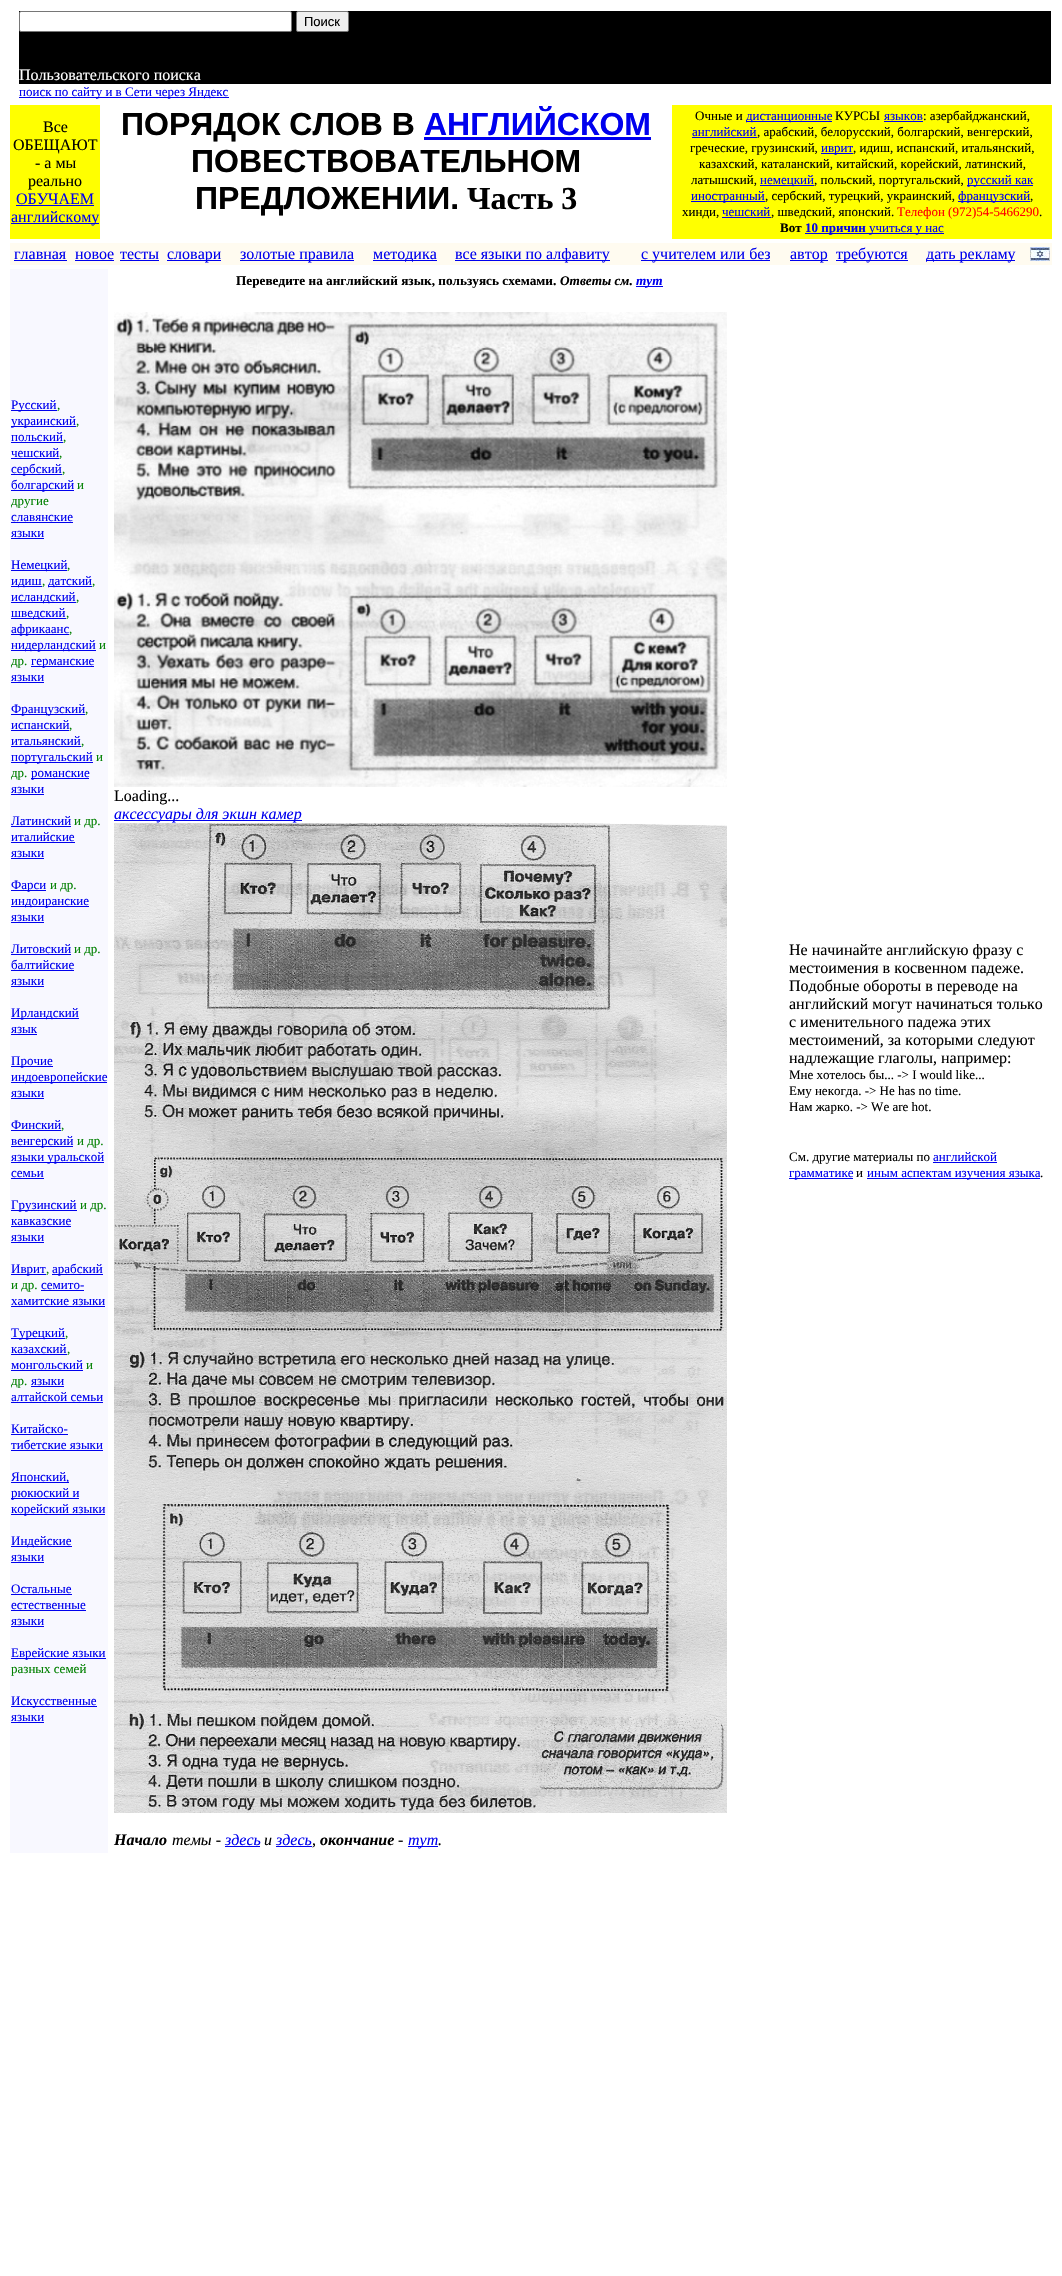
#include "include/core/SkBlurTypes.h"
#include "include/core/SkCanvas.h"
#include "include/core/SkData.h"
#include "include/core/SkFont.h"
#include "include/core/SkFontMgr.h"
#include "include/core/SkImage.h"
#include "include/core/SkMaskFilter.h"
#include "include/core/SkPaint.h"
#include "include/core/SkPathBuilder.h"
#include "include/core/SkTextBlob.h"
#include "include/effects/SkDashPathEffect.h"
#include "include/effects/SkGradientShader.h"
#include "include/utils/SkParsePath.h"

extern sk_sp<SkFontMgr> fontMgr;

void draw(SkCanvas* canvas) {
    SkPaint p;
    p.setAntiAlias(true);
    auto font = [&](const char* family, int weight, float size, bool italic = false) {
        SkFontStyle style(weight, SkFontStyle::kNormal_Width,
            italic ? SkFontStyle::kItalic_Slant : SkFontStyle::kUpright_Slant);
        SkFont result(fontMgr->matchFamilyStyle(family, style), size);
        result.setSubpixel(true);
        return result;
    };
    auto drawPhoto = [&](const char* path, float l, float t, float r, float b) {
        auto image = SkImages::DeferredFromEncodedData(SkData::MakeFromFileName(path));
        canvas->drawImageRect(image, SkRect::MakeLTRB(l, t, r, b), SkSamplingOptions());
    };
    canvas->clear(0xFFFFFFFF);
    p.setColor(0xFF000000);
    canvas->drawRect(SkRect::MakeLTRB(19, 11, 1051, 84), p);
    p.setColor(0xFFFFFFFF);
    canvas->drawRoundRect(SkRect::MakeLTRB(19.5f, 11.5f, 291.5f, 31.5f), 1.5f, 1.5f, p);
    p.setStyle(SkPaint::kStroke_Style);
    p.setStrokeWidth(1);
    p.setColor(0xFF767676);
    canvas->drawRoundRect(SkRect::MakeLTRB(19.5f, 11.5f, 291.5f, 31.5f), 1.5f, 1.5f, p);
    p.setStyle(SkPaint::kFill_Style);
    p.setColor(0xFFEFEFEF);
    canvas->drawRoundRect(SkRect::MakeLTRB(296.5f, 11.5f, 348.5f, 31.5f), 1.5f, 1.5f, p);
    p.setStyle(SkPaint::kStroke_Style);
    p.setColor(0xFF767676);
    canvas->drawRoundRect(SkRect::MakeLTRB(296.5f, 11.5f, 348.5f, 31.5f), 1.5f, 1.5f, p);
    auto font1 = font("Liberation Sans", 400, 13);
    p.setStyle(SkPaint::kFill_Style);
    p.setColor(0xFF000000);
    canvas->drawString("Поиск", 304, 26, font1, p);
    auto font2 = font("Liberation Serif", 400, 16);
    p.setColor(0xFFFFFFFF);
    canvas->drawString("Пользовательского поиска", 19, 80, font2, p);
    p.setColor(0xFF0000EE);
    canvas->drawRect(SkRect::MakeLTRB(19, 97, 229, 98), p);
    auto font3 = font("Liberation Serif", 400, 13);
    canvas->drawString("поиск по сайту и в Сети через Яндекс", 19, 96, font3, p);
    p.setColor(0xFFFFFF00);
    canvas->drawRect(SkRect::MakeLTRB(10, 105, 100, 239), p);
    p.setColor(0xFF000000);
    {
        const struct { const char* s; float x, y; } items[] = {
            {"Все", 43, 132},
            {"ОБЕЩАЮТ", 13, 150},
            {"- а мы", 35, 168},
            {"реально", 28, 186},
        };
        for (auto [s, x, y] : items) {
            canvas->drawString(s, x, y, font2, p);
        }
    }
    p.setColor(0xFF0000EE);
    canvas->drawString("ОБУЧАЕМ", 16, 204, font2, p);
    canvas->drawRect(SkRect::MakeLTRB(16, 205, 94, 206), p);
    canvas->drawRect(SkRect::MakeLTRB(11, 223, 99, 224), p);
    canvas->drawString("английскому", 11, 222, font2, p);
    auto font4 = font("Liberation Sans", 700, 32);
    p.setColor(0xFF000000);
    canvas->drawString("ПОРЯДОК СЛОВ В", 121, 135, font4, p);
    p.setColor(0xFF0000EE);
    canvas->drawString("АНГЛИЙСКОМ", 424, 135, font4, p);
    canvas->drawRect(SkRect::MakeLTRB(424, 137, 651, 140), p);
    p.setColor(0xFF000000);
    canvas->drawString("ПОВЕСТВОВАТЕЛЬНОМ", 191, 172, font4, p);
    canvas->drawString("ПРЕДЛОЖЕНИИ.", 195, 209, font4, p);
    auto font5 = font("Liberation Serif", 700, 32);
    canvas->drawString("Часть 3", 467, 209, font5, p);
    p.setColor(0xFFFFFF00);
    canvas->drawRect(SkRect::MakeLTRB(672, 105, 1052, 239), p);
    p.setColor(0xFF000000);
    canvas->drawString("Очные и", 695, 120, font3, p);
    p.setColor(0xFF0000EE);
    canvas->drawRect(SkRect::MakeLTRB(746, 121, 832, 122), p);
    canvas->drawString("дистанционные", 746, 120, font3, p);
    p.setColor(0xFF000000);
    canvas->drawString("КУРСЫ", 835, 120, font3, p);
    p.setColor(0xFF0000EE);
    canvas->drawString("языков", 884, 120, font3, p);
    canvas->drawRect(SkRect::MakeLTRB(884, 121, 923, 122), p);
    p.setColor(0xFF000000);
    canvas->drawString(": азербайджанский,", 923, 120, font3, p);
    p.setColor(0xFF0000EE);
    canvas->drawString("английский", 692, 136, font3, p);
    p.setColor(0xFF000000);
    canvas->drawString(", арабский, белорусский, болгарский, венгерский,", 757, 136, font3, p);
    p.setColor(0xFF0000EE);
    canvas->drawRect(SkRect::MakeLTRB(692, 137, 757, 138), p);
    p.setColor(0xFF000000);
    canvas->drawString("греческие, грузинский,", 690, 152, font3, p);
    p.setColor(0xFF0000EE);
    canvas->drawRect(SkRect::MakeLTRB(821, 153, 853, 154), p);
    canvas->drawString("иврит", 821, 152, font3, p);
    p.setColor(0xFF000000);
    {
        const struct { const char* s; float x, y; } items[] = {
            {", идиш, испанский, итальянский,", 853, 152},
            {"казахский, каталанский, китайский, корейский, латинский,", 699, 168},
            {"латышский,", 691, 184},
        };
        for (auto [s, x, y] : items) {
            canvas->drawString(s, x, y, font3, p);
        }
    }
    p.setColor(0xFF0000EE);
    canvas->drawRect(SkRect::MakeLTRB(760, 185, 814, 186), p);
    canvas->drawString("немецкий", 760, 184, font3, p);
    p.setColor(0xFF000000);
    canvas->drawString(", польский, португальский,", 814, 184, font3, p);
    p.setColor(0xFF0000EE);
    canvas->drawRect(SkRect::MakeLTRB(967, 185, 1033, 186), p);
    canvas->drawString("русский как", 967, 184, font3, p);
    canvas->drawRect(SkRect::MakeLTRB(691, 201, 765, 202), p);
    canvas->drawString("иностранный", 691, 200, font3, p);
    p.setColor(0xFF000000);
    canvas->drawString(", сербский, турецкий, украинский,", 765, 200, font3, p);
    p.setColor(0xFF0000EE);
    canvas->drawRect(SkRect::MakeLTRB(958, 201, 1030, 202), p);
    canvas->drawString("французский", 958, 200, font3, p);
    p.setColor(0xFF000000);
    canvas->drawString(",", 1030, 200, font3, p);
    canvas->drawString("хинди,", 682, 216, font3, p);
    p.setColor(0xFF0000EE);
    canvas->drawRect(SkRect::MakeLTRB(722, 217, 771, 218), p);
    canvas->drawString("чешский", 722, 216, font3, p);
    p.setColor(0xFF000000);
    canvas->drawString(", шведский, японский.", 771, 216, font3, p);
    p.setColor(0xFFFF0000);
    canvas->drawString("Телефон (972)54-5466290", 897, 216, font3, p);
    p.setColor(0xFF000000);
    canvas->drawString(".", 1039, 216, font3, p);
    auto font6 = font("Liberation Serif", 700, 13);
    canvas->drawString("Вот", 780, 232, font6, p);
    p.setColor(0xFF0000EE);
    canvas->drawRect(SkRect::MakeLTRB(805, 233, 944, 234), p);
    canvas->drawString("10 причин", 805, 232, font6, p);
    canvas->drawString("учиться у нас", 869, 232, font3, p);
    p.setColor(0xFFFFFBF0);
    canvas->drawRect(SkRect::MakeLTRB(10, 243, 1052, 265), p);
    p.setColor(0xFF0000EE);
    canvas->drawString("главная", 14, 259, font2, p);
    canvas->drawRect(SkRect::MakeLTRB(14, 260, 67, 261), p);
    canvas->drawString("новое", 75, 259, font2, p);
    canvas->drawRect(SkRect::MakeLTRB(75, 260, 114, 261), p);
    canvas->drawString("тесты", 120, 259, font2, p);
    canvas->drawRect(SkRect::MakeLTRB(120, 260, 159, 261), p);
    canvas->drawRect(SkRect::MakeLTRB(167, 260, 221, 261), p);
    canvas->drawString("словари", 167, 259, font2, p);
    canvas->drawRect(SkRect::MakeLTRB(240, 260, 354, 261), p);
    canvas->drawString("золотые правила", 240, 259, font2, p);
    canvas->drawRect(SkRect::MakeLTRB(373, 260, 437, 261), p);
    canvas->drawString("методика", 373, 259, font2, p);
    canvas->drawRect(SkRect::MakeLTRB(455, 260, 610, 261), p);
    canvas->drawString("все языки по алфавиту", 455, 259, font2, p);
    canvas->drawRect(SkRect::MakeLTRB(641, 260, 770, 261), p);
    canvas->drawString("с учителем или без", 641, 259, font2, p);
    canvas->drawRect(SkRect::MakeLTRB(790, 260, 828, 261), p);
    canvas->drawString("автор", 790, 259, font2, p);
    canvas->drawRect(SkRect::MakeLTRB(836, 260, 908, 261), p);
    canvas->drawString("требуются", 836, 259, font2, p);
    canvas->drawRect(SkRect::MakeLTRB(926, 260, 1015, 261), p);
    canvas->drawString("дать рекламу", 926, 259, font2, p);
    drawPhoto("media/1.png", 1030, 247, 1050, 261);
    p.setColor(0xFFF8F8FF);
    canvas->drawRect(SkRect::MakeLTRB(10, 269, 108, 1853), p);
    p.setColor(0xFF0000EE);
    canvas->drawRect(SkRect::MakeLTRB(11, 410, 57, 411), p);
    canvas->drawString("Русский", 11, 409, font3, p);
    p.setColor(0xFF008000);
    canvas->drawString(",", 57, 409, font3, p);
    p.setColor(0xFF0000EE);
    canvas->drawRect(SkRect::MakeLTRB(11, 426, 76, 427), p);
    canvas->drawString("украинский", 11, 425, font3, p);
    p.setColor(0xFF008000);
    canvas->drawString(",", 76, 425, font3, p);
    p.setColor(0xFF0000EE);
    canvas->drawString("польский", 11, 441, font3, p);
    p.setColor(0xFF008000);
    canvas->drawString(",", 63, 441, font3, p);
    p.setColor(0xFF0000EE);
    canvas->drawRect(SkRect::MakeLTRB(11, 442, 63, 443), p);
    canvas->drawString("чешский", 11, 457, font3, p);
    p.setColor(0xFF008000);
    canvas->drawString(",", 59, 457, font3, p);
    p.setColor(0xFF0000EE);
    canvas->drawRect(SkRect::MakeLTRB(11, 458, 59, 459), p);
    canvas->drawRect(SkRect::MakeLTRB(11, 474, 62, 475), p);
    canvas->drawString("сербский", 11, 473, font3, p);
    p.setColor(0xFF008000);
    canvas->drawString(",", 62, 473, font3, p);
    p.setColor(0xFF0000EE);
    canvas->drawRect(SkRect::MakeLTRB(11, 490, 74, 491), p);
    canvas->drawString("болгарский", 11, 489, font3, p);
    p.setColor(0xFF008000);
    canvas->drawString("и", 77, 489, font3, p);
    canvas->drawString("другие", 11, 505, font3, p);
    p.setColor(0xFF0000EE);
    canvas->drawString("славянские", 11, 521, font3, p);
    canvas->drawRect(SkRect::MakeLTRB(11, 522, 73, 523), p);
    canvas->drawString("языки", 11, 537, font3, p);
    canvas->drawRect(SkRect::MakeLTRB(11, 538, 44, 539), p);
    canvas->drawRect(SkRect::MakeLTRB(11, 570, 67, 571), p);
    canvas->drawString("Немецкий", 11, 569, font3, p);
    p.setColor(0xFF008000);
    canvas->drawString(",", 67, 569, font3, p);
    p.setColor(0xFF0000EE);
    canvas->drawRect(SkRect::MakeLTRB(11, 586, 42, 587), p);
    canvas->drawString("идиш", 11, 585, font3, p);
    p.setColor(0xFF008000);
    canvas->drawString(",", 42, 585, font3, p);
    p.setColor(0xFF0000EE);
    canvas->drawRect(SkRect::MakeLTRB(48, 586, 92, 587), p);
    canvas->drawString("датский", 48, 585, font3, p);
    p.setColor(0xFF008000);
    canvas->drawString(",", 92, 585, font3, p);
    p.setColor(0xFF0000EE);
    canvas->drawRect(SkRect::MakeLTRB(11, 602, 76, 603), p);
    canvas->drawString("исландский", 11, 601, font3, p);
    p.setColor(0xFF008000);
    canvas->drawString(",", 76, 601, font3, p);
    p.setColor(0xFF0000EE);
    canvas->drawRect(SkRect::MakeLTRB(11, 618, 66, 619), p);
    canvas->drawString("шведский", 11, 617, font3, p);
    p.setColor(0xFF008000);
    canvas->drawString(",", 66, 617, font3, p);
    p.setColor(0xFF0000EE);
    canvas->drawRect(SkRect::MakeLTRB(11, 634, 69, 635), p);
    canvas->drawString("африкаанс", 11, 633, font3, p);
    p.setColor(0xFF008000);
    canvas->drawString(",", 69, 633, font3, p);
    p.setColor(0xFF0000EE);
    canvas->drawRect(SkRect::MakeLTRB(11, 650, 96, 651), p);
    canvas->drawString("нидерландский", 11, 649, font3, p);
    p.setColor(0xFF008000);
    canvas->drawString("и", 99, 649, font3, p);
    canvas->drawString("др.", 11, 665, font3, p);
    p.setColor(0xFF0000EE);
    canvas->drawRect(SkRect::MakeLTRB(31, 666, 94, 667), p);
    canvas->drawString("германские", 31, 665, font3, p);
    canvas->drawString("языки", 11, 681, font3, p);
    canvas->drawRect(SkRect::MakeLTRB(11, 682, 44, 683), p);
    canvas->drawRect(SkRect::MakeLTRB(11, 714, 85, 715), p);
    canvas->drawString("Французский", 11, 713, font3, p);
    p.setColor(0xFF008000);
    canvas->drawString(",", 85, 713, font3, p);
    p.setColor(0xFF0000EE);
    canvas->drawString("испанский", 11, 729, font3, p);
    p.setColor(0xFF008000);
    canvas->drawString(",", 69, 729, font3, p);
    p.setColor(0xFF0000EE);
    canvas->drawRect(SkRect::MakeLTRB(11, 730, 69, 731), p);
    canvas->drawString("итальянский", 11, 745, font3, p);
    p.setColor(0xFF008000);
    canvas->drawString(",", 81, 745, font3, p);
    p.setColor(0xFF0000EE);
    canvas->drawRect(SkRect::MakeLTRB(11, 746, 81, 747), p);
    canvas->drawRect(SkRect::MakeLTRB(11, 762, 93, 763), p);
    canvas->drawString("португальский", 11, 761, font3, p);
    p.setColor(0xFF008000);
    canvas->drawString("и", 96, 761, font3, p);
    canvas->drawString("др.", 11, 777, font3, p);
    p.setColor(0xFF0000EE);
    canvas->drawRect(SkRect::MakeLTRB(31, 778, 89, 779), p);
    canvas->drawString("романские", 31, 777, font3, p);
    canvas->drawString("языки", 11, 793, font3, p);
    canvas->drawRect(SkRect::MakeLTRB(11, 794, 44, 795), p);
    canvas->drawString("Латинский", 11, 825, font3, p);
    p.setColor(0xFF008000);
    canvas->drawString("и др.", 74, 825, font3, p);
    p.setColor(0xFF0000EE);
    canvas->drawRect(SkRect::MakeLTRB(11, 826, 71, 827), p);
    canvas->drawString("италийские", 11, 841, font3, p);
    canvas->drawRect(SkRect::MakeLTRB(11, 842, 75, 843), p);
    canvas->drawString("языки", 11, 857, font3, p);
    canvas->drawRect(SkRect::MakeLTRB(11, 858, 44, 859), p);
    canvas->drawRect(SkRect::MakeLTRB(11, 890, 46, 891), p);
    canvas->drawString("Фарси", 11, 889, font3, p);
    p.setColor(0xFF008000);
    canvas->drawString("и др.", 50, 889, font3, p);
    p.setColor(0xFF0000EE);
    canvas->drawRect(SkRect::MakeLTRB(11, 906, 89, 907), p);
    canvas->drawString("индоиранские", 11, 905, font3, p);
    canvas->drawString("языки", 11, 921, font3, p);
    canvas->drawRect(SkRect::MakeLTRB(11, 922, 44, 923), p);
    canvas->drawString("Литовский", 11, 953, font3, p);
    p.setColor(0xFF008000);
    canvas->drawString("и др.", 74, 953, font3, p);
    p.setColor(0xFF0000EE);
    canvas->drawRect(SkRect::MakeLTRB(11, 954, 71, 955), p);
    canvas->drawString("балтийские", 11, 969, font3, p);
    canvas->drawRect(SkRect::MakeLTRB(11, 970, 74, 971), p);
    canvas->drawString("языки", 11, 985, font3, p);
    canvas->drawRect(SkRect::MakeLTRB(11, 986, 44, 987), p);
    canvas->drawRect(SkRect::MakeLTRB(11, 1018, 79, 1019), p);
    canvas->drawString("Ирландский", 11, 1017, font3, p);
    canvas->drawString("язык", 11, 1033, font3, p);
    canvas->drawRect(SkRect::MakeLTRB(11, 1034, 37, 1035), p);
    canvas->drawRect(SkRect::MakeLTRB(11, 1066, 53, 1067), p);
    canvas->drawString("Прочие", 11, 1065, font3, p);
    canvas->drawRect(SkRect::MakeLTRB(11, 1082, 107, 1083), p);
    canvas->drawString("индоевропейские", 11, 1081, font3, p);
    canvas->drawString("языки", 11, 1097, font3, p);
    canvas->drawRect(SkRect::MakeLTRB(11, 1098, 44, 1099), p);
    canvas->drawString("Финский", 11, 1129, font3, p);
    p.setColor(0xFF008000);
    canvas->drawString(",", 61, 1129, font3, p);
    p.setColor(0xFF0000EE);
    canvas->drawRect(SkRect::MakeLTRB(11, 1130, 61, 1131), p);
    canvas->drawRect(SkRect::MakeLTRB(11, 1146, 73, 1147), p);
    canvas->drawString("венгерский", 11, 1145, font3, p);
    p.setColor(0xFF008000);
    canvas->drawString("и др.", 77, 1145, font3, p);
    p.setColor(0xFF0000EE);
    canvas->drawRect(SkRect::MakeLTRB(11, 1162, 104, 1163), p);
    canvas->drawString("языки уральской", 11, 1161, font3, p);
    canvas->drawString("семьи", 11, 1177, font3, p);
    canvas->drawRect(SkRect::MakeLTRB(11, 1178, 44, 1179), p);
    canvas->drawRect(SkRect::MakeLTRB(11, 1210, 77, 1211), p);
    canvas->drawString("Грузинский", 11, 1209, font3, p);
    p.setColor(0xFF008000);
    canvas->drawString("и др.", 80, 1209, font3, p);
    p.setColor(0xFF0000EE);
    canvas->drawString("кавказские", 11, 1225, font3, p);
    canvas->drawRect(SkRect::MakeLTRB(11, 1226, 71, 1227), p);
    canvas->drawString("языки", 11, 1241, font3, p);
    canvas->drawRect(SkRect::MakeLTRB(11, 1242, 44, 1243), p);
    canvas->drawRect(SkRect::MakeLTRB(11, 1274, 46, 1275), p);
    canvas->drawString("Иврит", 11, 1273, font3, p);
    p.setColor(0xFF008000);
    canvas->drawString(",", 46, 1273, font3, p);
    p.setColor(0xFF0000EE);
    canvas->drawRect(SkRect::MakeLTRB(52, 1274, 103, 1275), p);
    canvas->drawString("арабский", 52, 1273, font3, p);
    p.setColor(0xFF008000);
    canvas->drawString("и др.", 11, 1289, font3, p);
    p.setColor(0xFF0000EE);
    canvas->drawString("семито-", 41, 1289, font3, p);
    canvas->drawRect(SkRect::MakeLTRB(41, 1290, 84, 1291), p);
    canvas->drawString("хамитские языки", 11, 1305, font3, p);
    canvas->drawRect(SkRect::MakeLTRB(11, 1306, 105, 1307), p);
    canvas->drawRect(SkRect::MakeLTRB(11, 1338, 65, 1339), p);
    canvas->drawString("Турецкий", 11, 1337, font3, p);
    p.setColor(0xFF008000);
    canvas->drawString(",", 65, 1337, font3, p);
    p.setColor(0xFF0000EE);
    canvas->drawString("казахский", 11, 1353, font3, p);
    p.setColor(0xFF008000);
    canvas->drawString(",", 67, 1353, font3, p);
    p.setColor(0xFF0000EE);
    canvas->drawRect(SkRect::MakeLTRB(11, 1354, 67, 1355), p);
    canvas->drawString("монгольский", 11, 1369, font3, p);
    canvas->drawRect(SkRect::MakeLTRB(11, 1370, 83, 1371), p);
    p.setColor(0xFF008000);
    canvas->drawString("и", 86, 1369, font3, p);
    canvas->drawString("др.", 11, 1385, font3, p);
    p.setColor(0xFF0000EE);
    canvas->drawString("языки", 31, 1385, font3, p);
    canvas->drawRect(SkRect::MakeLTRB(31, 1386, 64, 1387), p);
    canvas->drawString("алтайской семьи", 11, 1401, font3, p);
    canvas->drawRect(SkRect::MakeLTRB(11, 1402, 103, 1403), p);
    canvas->drawString("Китайско-", 11, 1433, font3, p);
    canvas->drawRect(SkRect::MakeLTRB(11, 1434, 68, 1435), p);
    canvas->drawString("тибетские языки", 11, 1449, font3, p);
    canvas->drawRect(SkRect::MakeLTRB(11, 1450, 103, 1451), p);
    canvas->drawRect(SkRect::MakeLTRB(11, 1482, 69, 1483), p);
    canvas->drawString("Японский,", 11, 1481, font3, p);
    canvas->drawRect(SkRect::MakeLTRB(11, 1498, 79, 1499), p);
    canvas->drawString("рюкюский и", 11, 1497, font3, p);
    canvas->drawRect(SkRect::MakeLTRB(11, 1514, 105, 1515), p);
    canvas->drawString("корейский языки", 11, 1513, font3, p);
    canvas->drawRect(SkRect::MakeLTRB(11, 1546, 72, 1547), p);
    canvas->drawString("Индейские", 11, 1545, font3, p);
    canvas->drawString("языки", 11, 1561, font3, p);
    canvas->drawRect(SkRect::MakeLTRB(11, 1562, 44, 1563), p);
    canvas->drawString("Остальные", 11, 1593, font3, p);
    canvas->drawRect(SkRect::MakeLTRB(11, 1594, 72, 1595), p);
    canvas->drawString("естественные", 11, 1609, font3, p);
    canvas->drawRect(SkRect::MakeLTRB(11, 1610, 86, 1611), p);
    canvas->drawString("языки", 11, 1625, font3, p);
    canvas->drawRect(SkRect::MakeLTRB(11, 1626, 44, 1627), p);
    canvas->drawRect(SkRect::MakeLTRB(11, 1658, 106, 1659), p);
    canvas->drawString("Еврейские языки", 11, 1657, font3, p);
    p.setColor(0xFF008000);
    canvas->drawString("разных семей", 11, 1673, font3, p);
    p.setColor(0xFF0000EE);
    canvas->drawRect(SkRect::MakeLTRB(11, 1706, 97, 1707), p);
    canvas->drawString("Искусственные", 11, 1705, font3, p);
    canvas->drawString("языки", 11, 1721, font3, p);
    canvas->drawRect(SkRect::MakeLTRB(11, 1722, 44, 1723), p);
    auto font7 = font("Liberation Serif", 700, 13.25f);
    p.setColor(0xFF000000);
    canvas->drawString("Переведите на английский язык, пользуясь схемами.", 236, 285, font7, p);
    auto font8 = font("Liberation Serif", 700, 13.25f, true);
    canvas->drawString("Ответы см.", 560, 285, font8, p);
    p.setColor(0xFF0000EE);
    canvas->drawRect(SkRect::MakeLTRB(636, 286, 663, 287), p);
    canvas->drawString("тут", 636, 285, font8, p);
    drawPhoto("media/2.png", 114, 312, 727, 787);
    p.setColor(0xFF000000);
    canvas->drawString("Loading...", 114, 801, font2, p);
    p.setColor(0xFF0000EE);
    canvas->drawRect(SkRect::MakeLTRB(114, 820, 302, 821), p);
    auto font9 = font("Liberation Serif", 400, 16, true);
    canvas->drawString("аксессуары для экшн камер", 114, 819, font9, p);
    drawPhoto("media/3.png", 114, 823, 727, 1813);
    auto font10 = font("Liberation Serif", 700, 16, true);
    p.setColor(0xFF000000);
    canvas->drawString("Начало", 114, 1845, font10, p);
    canvas->drawString("темы -", 172, 1845, font9, p);
    p.setColor(0xFF0000EE);
    canvas->drawString("здесь", 225, 1845, font9, p);
    canvas->drawRect(SkRect::MakeLTRB(225, 1846, 260, 1847), p);
    p.setColor(0xFF000000);
    canvas->drawString("и", 264, 1845, font9, p);
    p.setColor(0xFF0000EE);
    canvas->drawString("здесь", 276, 1845, font9, p);
    p.setColor(0xFF000000);
    canvas->drawString("окончание", 320, 1845, font10, p);
    canvas->drawString("-", 398, 1845, font9, p);
    p.setColor(0xFF0000EE);
    canvas->drawRect(SkRect::MakeLTRB(408, 1846, 438, 1847), p);
    canvas->drawString("тут", 408, 1845, font9, p);
    p.setColor(0xFF000000);
    canvas->drawString(",", 312, 1845, font9, p);
    p.setColor(0xFF0000EE);
    canvas->drawRect(SkRect::MakeLTRB(276, 1846, 312, 1847), p);
    p.setColor(0xFF000000);
    canvas->drawString(".", 438, 1845, font9, p);
    {
        const struct { const char* s; float x, y; } items[] = {
            {"Не начинайте английскую фразу с", 789, 955},
            {"местоимения в косвенном падеже.", 789, 973},
            {"Подобные обороты в переводе на", 789, 991},
            {"английский могут начинаться только", 789, 1009},
            {"с именительного падежа этих", 789, 1027},
            {"местоимений, за которыми следуют", 789, 1045},
            {"надлежащие глаголы, например:", 789, 1063},
        };
        for (auto [s, x, y] : items) {
            canvas->drawString(s, x, y, font2, p);
        }
    }
    {
        const struct { const char* s; float x, y; } items[] = {
            {"Мне хотелось бы... -> I would like...", 789, 1079},
            {"Ему некогда. -> Не has no time.", 789, 1095},
            {"Нам жарко. -> We are hot.", 789, 1111},
            {"См. другие материалы по", 789, 1161},
        };
        for (auto [s, x, y] : items) {
            canvas->drawString(s, x, y, font3, p);
        }
    }
    p.setColor(0xFF0000EE);
    canvas->drawString("английской", 933, 1161, font3, p);
    canvas->drawRect(SkRect::MakeLTRB(933, 1162, 997, 1163), p);
    canvas->drawRect(SkRect::MakeLTRB(789, 1178, 853, 1179), p);
    canvas->drawString("грамматике", 789, 1177, font3, p);
    p.setColor(0xFF000000);
    canvas->drawString("и", 856, 1177, font3, p);
    p.setColor(0xFF0000EE);
    canvas->drawRect(SkRect::MakeLTRB(867, 1178, 1040, 1179), p);
    canvas->drawString("иным аспектам изучения языка", 867, 1177, font3, p);
    p.setColor(0xFF000000);
    canvas->drawString(".", 1040, 1177, font3, p);
}
